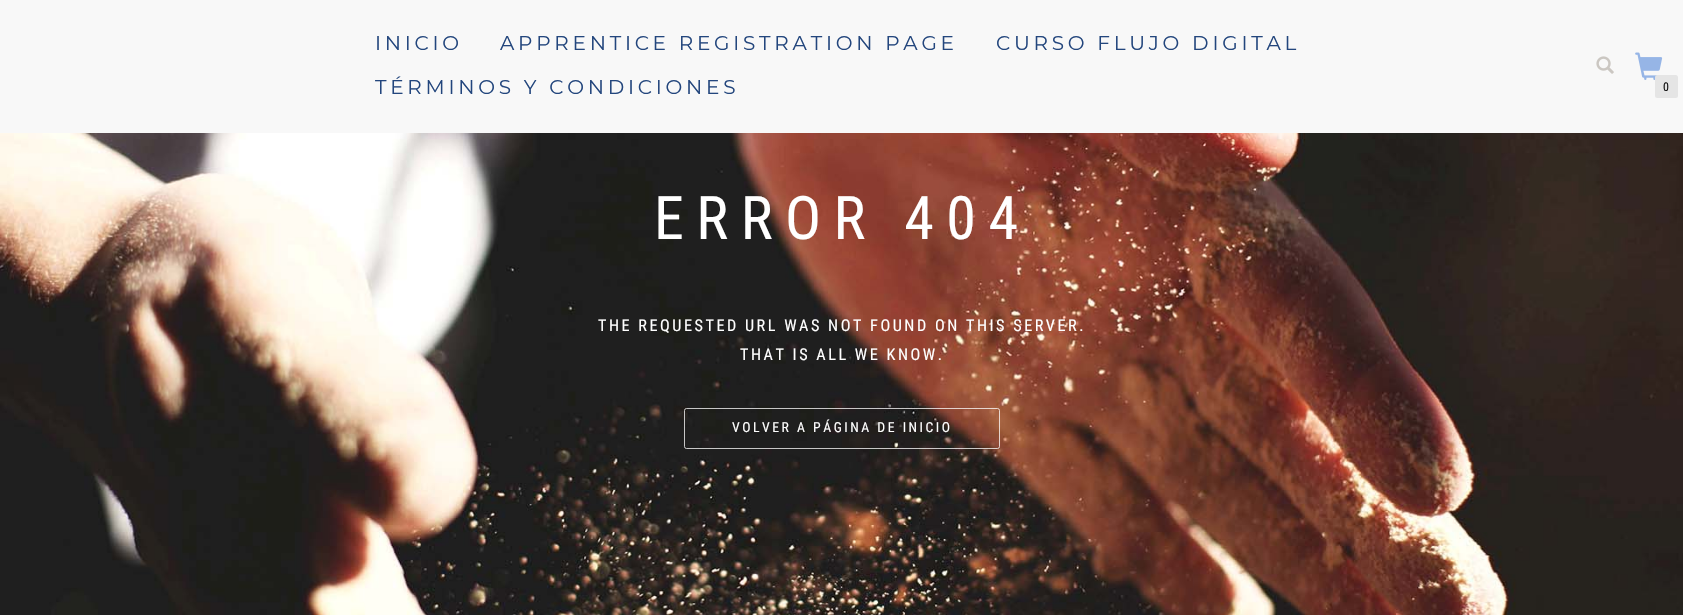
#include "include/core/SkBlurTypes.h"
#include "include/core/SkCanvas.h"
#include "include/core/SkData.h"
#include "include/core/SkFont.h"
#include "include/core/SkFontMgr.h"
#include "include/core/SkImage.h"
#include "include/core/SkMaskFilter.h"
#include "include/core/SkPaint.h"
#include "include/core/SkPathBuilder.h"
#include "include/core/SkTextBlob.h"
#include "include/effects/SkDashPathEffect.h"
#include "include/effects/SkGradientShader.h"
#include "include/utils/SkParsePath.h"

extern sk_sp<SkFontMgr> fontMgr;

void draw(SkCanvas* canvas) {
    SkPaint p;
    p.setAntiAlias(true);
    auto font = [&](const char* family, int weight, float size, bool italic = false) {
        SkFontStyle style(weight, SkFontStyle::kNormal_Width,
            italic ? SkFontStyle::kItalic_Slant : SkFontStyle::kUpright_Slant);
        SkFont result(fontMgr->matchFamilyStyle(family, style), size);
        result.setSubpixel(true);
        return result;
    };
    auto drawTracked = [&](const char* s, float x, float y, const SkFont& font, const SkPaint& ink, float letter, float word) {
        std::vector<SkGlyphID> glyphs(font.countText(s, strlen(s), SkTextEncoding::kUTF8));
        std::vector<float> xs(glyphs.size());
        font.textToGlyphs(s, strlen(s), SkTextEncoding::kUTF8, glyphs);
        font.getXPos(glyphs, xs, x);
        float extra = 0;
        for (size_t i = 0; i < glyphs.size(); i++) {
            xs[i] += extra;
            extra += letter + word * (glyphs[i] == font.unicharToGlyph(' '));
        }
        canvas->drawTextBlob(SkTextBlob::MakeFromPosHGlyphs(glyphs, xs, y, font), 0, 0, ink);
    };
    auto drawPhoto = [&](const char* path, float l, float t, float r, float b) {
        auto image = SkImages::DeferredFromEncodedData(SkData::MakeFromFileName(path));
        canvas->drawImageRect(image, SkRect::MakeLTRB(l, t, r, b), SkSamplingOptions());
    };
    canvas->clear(0xFFFFFFFF);
    p.setColor(0xFFF8F8F8);
    canvas->drawRect(SkRect::MakeLTRB(0, 0, 1683, 133), p);
    auto font1 = font("Montserrat", 100, 20);
    p.setColor(0xFF23467D);
    {
        const struct { const char* s; float x, y; } items[] = {
            {"INICIO", 375, 50},
            {"APPRENTICE REGISTRATION PAGE", 500, 50},
            {"CURSO FLUJO DIGITAL", 996, 50},
            {"TÉRMINOS Y CONDICIONES", 375, 94},
        };
        for (auto [s, x, y] : items) {
            drawTracked(s, x, y, font1, p, 3.75f, 0);
        }
    }
    drawPhoto("media/1.png", 1596, 56, 1614, 74);
    drawPhoto("media/2.png", 1635, 52, 1663, 80);
    p.setColor(0xFFE5E5E5);
    canvas->drawRoundRect(SkRect::MakeLTRB(1655, 75, 1678, 98), 2.5f, 2.5f, p);
    auto font2 = font("Roboto Condensed", 400, 12);
    p.setColor(0xFF111111);
    canvas->drawString("0", 1663, 91, font2, p);
    drawPhoto("media/3.png", 0, 133, 1683, 615);
    auto font3 = font("Roboto Condensed", 400, 60);
    p.setColor(0xFFFFFFFF);
    drawTracked("ERROR 404", 654, 239, font3, p, 12.5f, 0);
    auto font4 = font("Roboto Condensed", 400, 16.25f);
    drawTracked("THE REQUESTED URL WAS NOT FOUND ON THIS SERVER.", 598, 331, font4, p, 2.5f, 0);
    drawTracked("THAT IS ALL WE KNOW.", 740, 360, font4, p, 2.5f, 0);
    p.setStyle(SkPaint::kStroke_Style);
    p.setStrokeWidth(1);
    p.setColor(0xBFFFFFFF);
    canvas->drawRoundRect(SkRect::MakeLTRB(684.5f, 408.5f, 999.5f, 448.5f), 2, 2, p);
    auto font5 = font("Roboto Condensed", 400, 13.75f);
    p.setStyle(SkPaint::kFill_Style);
    p.setColor(0xFFFFFFFF);
    drawTracked("VOLVER A PÁGINA DE INICIO", 732, 432, font5, p, 2.5f, 0);
}
